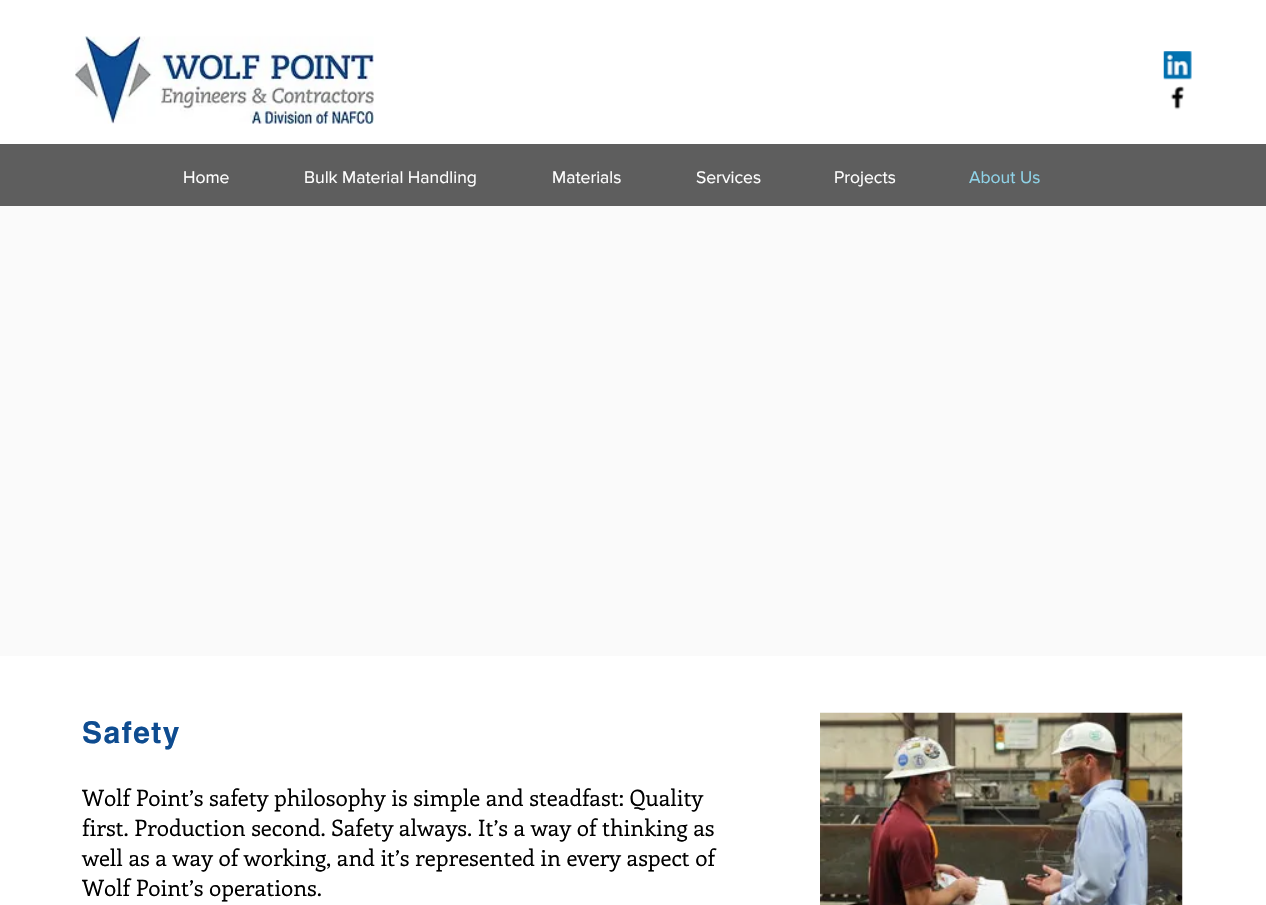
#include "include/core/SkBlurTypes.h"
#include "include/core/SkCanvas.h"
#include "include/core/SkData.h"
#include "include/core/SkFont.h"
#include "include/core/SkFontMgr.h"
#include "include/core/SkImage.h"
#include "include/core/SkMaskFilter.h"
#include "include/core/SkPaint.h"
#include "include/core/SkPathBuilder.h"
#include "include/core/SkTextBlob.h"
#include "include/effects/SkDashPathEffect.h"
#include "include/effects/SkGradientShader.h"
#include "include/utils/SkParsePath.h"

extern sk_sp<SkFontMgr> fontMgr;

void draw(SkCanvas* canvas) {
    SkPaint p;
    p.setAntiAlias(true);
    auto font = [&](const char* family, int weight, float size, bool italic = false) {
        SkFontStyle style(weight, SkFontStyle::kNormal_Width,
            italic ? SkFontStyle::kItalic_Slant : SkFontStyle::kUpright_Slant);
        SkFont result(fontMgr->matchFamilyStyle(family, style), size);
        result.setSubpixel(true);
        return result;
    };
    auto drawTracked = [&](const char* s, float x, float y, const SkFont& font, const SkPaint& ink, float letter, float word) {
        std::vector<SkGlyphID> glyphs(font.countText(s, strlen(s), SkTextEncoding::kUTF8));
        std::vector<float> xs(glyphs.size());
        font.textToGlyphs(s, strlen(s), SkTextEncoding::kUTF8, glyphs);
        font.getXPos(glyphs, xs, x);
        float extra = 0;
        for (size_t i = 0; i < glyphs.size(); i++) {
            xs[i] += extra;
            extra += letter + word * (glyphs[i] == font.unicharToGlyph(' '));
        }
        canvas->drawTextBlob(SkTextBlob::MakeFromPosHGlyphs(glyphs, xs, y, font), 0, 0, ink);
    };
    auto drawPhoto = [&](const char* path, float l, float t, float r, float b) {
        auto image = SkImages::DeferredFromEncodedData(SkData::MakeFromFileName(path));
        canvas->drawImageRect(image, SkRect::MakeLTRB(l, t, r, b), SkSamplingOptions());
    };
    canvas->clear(0xFFFFFFFF);
    drawPhoto("media/1.png", 1163, 51, 1192, 80);
    drawPhoto("media/2.png", 1170, 86, 1185, 110);
    drawPhoto("media/3.png", 75, 36, 374, 124);
    p.setColor(0xFF5E5E5E);
    canvas->drawRect(SkRect::MakeLTRB(0, 144, 1266, 206), p);
    auto font1 = font("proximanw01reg", 400, 17.5f);
    p.setColor(0xFFFFFFFF);
    {
        const struct { const char* s; float x, y; } items[] = {
            {"Home", 183, 183},
            {"Bulk Material Handling", 304, 183},
            {"Materials", 552, 183},
            {"Services", 696, 183},
            {"Projects", 834, 183},
        };
        for (auto [s, x, y] : items) {
            canvas->drawString(s, x, y, font1, p);
        }
    }
    p.setColor(0xFF8FD3E8);
    canvas->drawString("About Us", 969, 183, font1, p);
    p.setColor(0xFFFAFAFA);
    canvas->drawRect(SkRect::MakeLTRB(0, 206, 1266, 656), p);
    auto font2 = font("helvetica", 700, 30);
    p.setColor(0xFF0E4C90);
    drawTracked("Safety", 82, 743, font2, p, 1.5f, 0);
    auto font3 = font("Enriqueta", 400, 22.5f);
    p.setColor(0xFF000000);
    {
        const struct { const char* s; float x, y; } items[] = {
            {"Wolf Point’s safety philosophy is simple and steadfast: Quality", 82, 806},
            {"first. Production second. Safety always. It’s a way of thinking as", 82, 836},
            {"well as a way of working, and it’s represented in every aspect of", 82, 866},
            {"Wolf Point’s operations.", 82, 896},
        };
        for (auto [s, x, y] : items) {
            canvas->drawString(s, x, y, font3, p);
        }
    }
    drawPhoto("media/4.png", 820, 712, 1183, 905);
}
